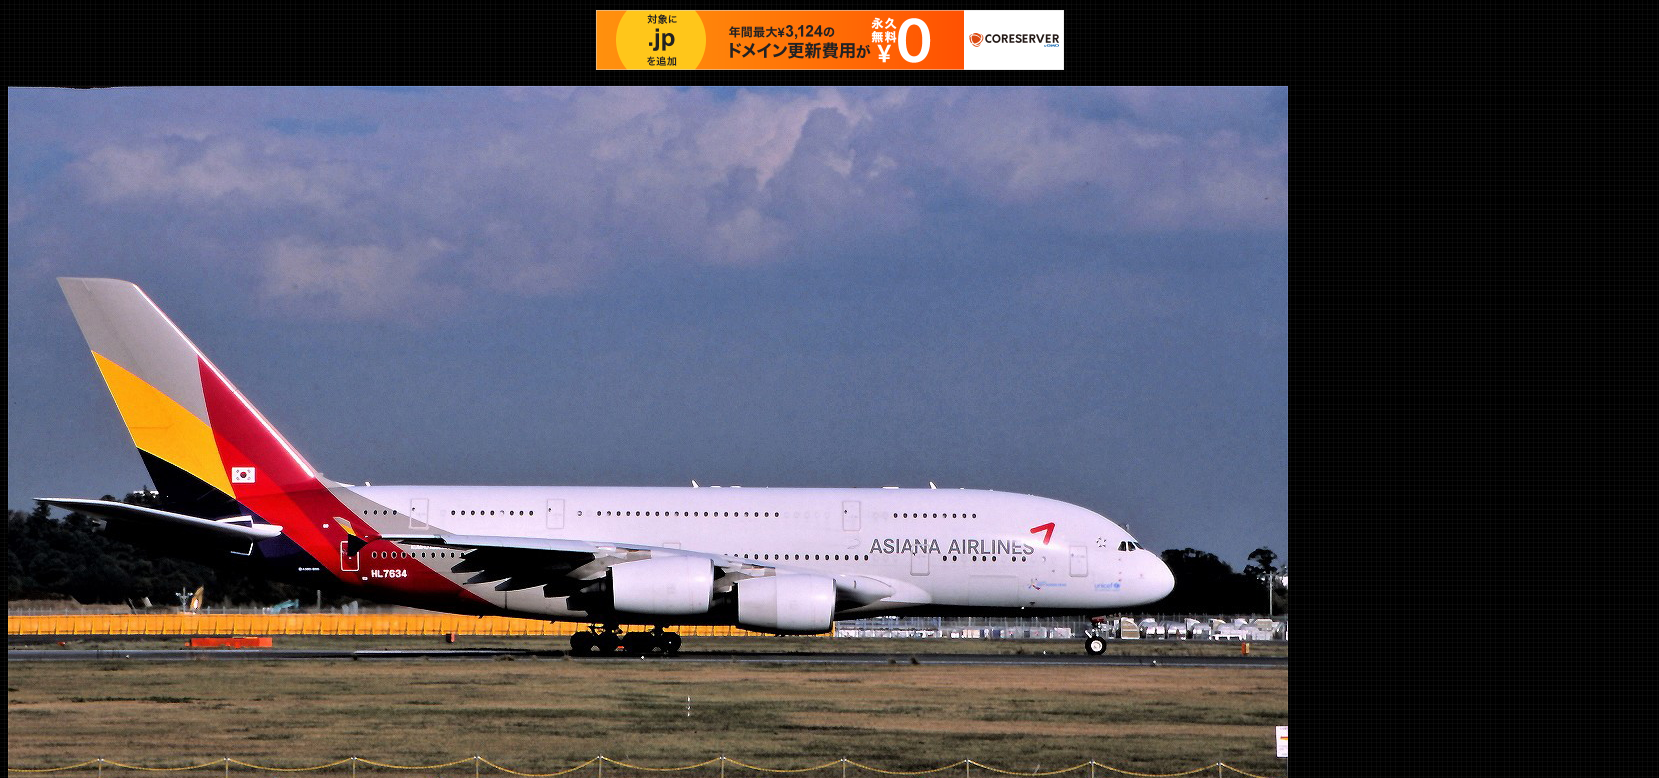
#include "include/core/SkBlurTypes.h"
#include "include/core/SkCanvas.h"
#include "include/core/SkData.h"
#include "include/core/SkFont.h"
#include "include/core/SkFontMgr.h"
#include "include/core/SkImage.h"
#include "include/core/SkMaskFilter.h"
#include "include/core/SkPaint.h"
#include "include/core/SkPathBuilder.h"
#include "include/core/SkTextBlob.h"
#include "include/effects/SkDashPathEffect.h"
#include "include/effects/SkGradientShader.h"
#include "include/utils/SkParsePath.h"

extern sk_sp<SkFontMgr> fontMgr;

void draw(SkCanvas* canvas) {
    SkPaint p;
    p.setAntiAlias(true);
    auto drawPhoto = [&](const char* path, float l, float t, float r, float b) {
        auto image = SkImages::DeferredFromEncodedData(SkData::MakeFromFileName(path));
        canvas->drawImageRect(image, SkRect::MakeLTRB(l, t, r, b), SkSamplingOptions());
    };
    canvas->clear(0xFFFFFFFF);
    drawPhoto("media/1.png", 0, 0, 1659, 778);
    drawPhoto("media/2.png", 596, 10, 1064, 70);
    drawPhoto("media/3.png", 8, 86, 1288, 778);
}
